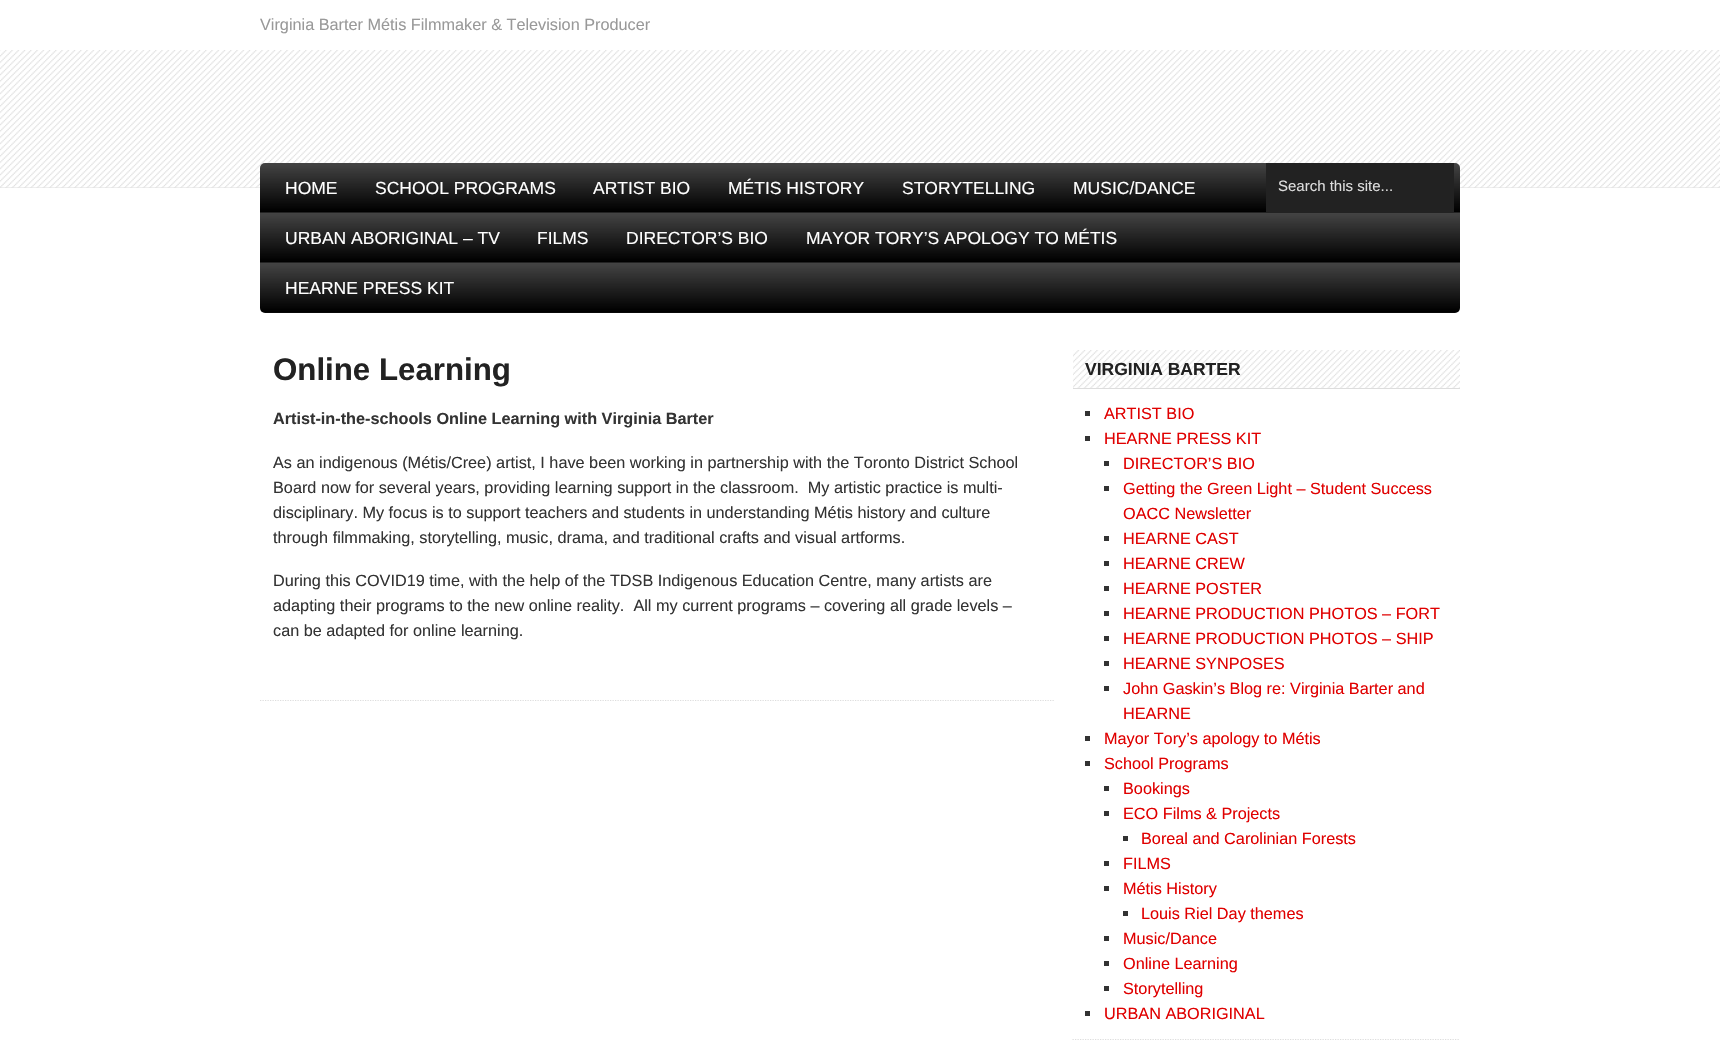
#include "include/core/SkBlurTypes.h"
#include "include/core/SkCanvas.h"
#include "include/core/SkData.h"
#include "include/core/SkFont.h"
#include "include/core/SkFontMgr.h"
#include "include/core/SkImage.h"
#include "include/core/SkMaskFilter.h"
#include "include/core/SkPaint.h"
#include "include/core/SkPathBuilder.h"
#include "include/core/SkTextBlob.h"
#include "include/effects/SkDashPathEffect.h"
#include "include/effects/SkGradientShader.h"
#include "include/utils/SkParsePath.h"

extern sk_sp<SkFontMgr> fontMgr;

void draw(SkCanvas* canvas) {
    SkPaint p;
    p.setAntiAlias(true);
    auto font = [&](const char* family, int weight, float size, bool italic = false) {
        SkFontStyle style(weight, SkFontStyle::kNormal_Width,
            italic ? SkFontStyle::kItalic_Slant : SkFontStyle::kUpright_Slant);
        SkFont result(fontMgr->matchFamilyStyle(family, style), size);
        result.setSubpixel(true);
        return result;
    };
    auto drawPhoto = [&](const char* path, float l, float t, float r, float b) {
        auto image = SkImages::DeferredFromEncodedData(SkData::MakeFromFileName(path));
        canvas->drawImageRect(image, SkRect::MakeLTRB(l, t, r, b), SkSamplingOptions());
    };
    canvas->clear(0xFFFFFFFF);
    auto font1 = font("Liberation Sans", 400, 16.25f);
    p.setColor(0xFF999999);
    canvas->drawString("Virginia Barter Métis Filmmaker & Television Producer", 260, 30, font1, p);
    p.setColor(0xFFDDDDDD);
    canvas->drawRect(SkRect::MakeLTRB(0, 50, 1720, 188), p);
    drawPhoto("media/1.png", 0, 50, 1720, 188);
    p.setColor(0xFF000000);
    canvas->drawRoundRect(SkRect::MakeLTRB(260, 163, 1460, 313), 5, 5, p);
    drawPhoto("media/2.png", 260, 163, 1460, 313);
    auto font2 = font("Liberation Sans", 400, 17.5f);
    p.setColor(0xFFFFFFFF);
    {
        const struct { const char* s; float x, y; } items[] = {
            {"HOME", 285, 194},
            {"SCHOOL PROGRAMS", 375, 194},
            {"ARTIST BIO", 593, 194},
            {"MÉTIS HISTORY", 728, 194},
            {"STORYTELLING", 902, 194},
            {"MUSIC/DANCE", 1073, 194},
            {"URBAN ABORIGINAL – TV", 285, 244},
            {"FILMS", 537, 244},
            {"DIRECTOR’S BIO", 626, 244},
            {"MAYOR TORY’S APOLOGY TO MÉTIS", 806, 244},
            {"HEARNE PRESS KIT", 285, 294},
        };
        for (auto [s, x, y] : items) {
            canvas->drawString(s, x, y, font2, p);
        }
    }
    p.setColor(0xFF222222);
    canvas->drawRect(SkRect::MakeLTRB(1266, 163, 1454, 212), p);
    auto font3 = font("Liberation Sans", 400, 15);
    p.setColor(0xFFDDDDDD);
    canvas->drawString("Search this site...", 1278, 191, font3, p);
    p.setStyle(SkPaint::kStroke_Style);
    p.setStrokeWidth(1.2f);
    p.setPathEffect(SkDashPathEffect::Make({{1.25f, 1.25f}}, 0));
    canvas->drawPath(SkPathBuilder().moveTo(260, 700.5f).lineTo(1054, 700.5f).detach(), p);
    p.setPathEffect(nullptr);
    auto font4 = font("Liberation Sans", 700, 31.25f);
    p.setStyle(SkPaint::kFill_Style);
    p.setColor(0xFF222222);
    canvas->drawString("Online Learning", 273, 380, font4, p);
    auto font5 = font("Liberation Sans", 700, 16.25f);
    p.setColor(0xFF333333);
    canvas->drawString("Artist-in-the-schools Online Learning with Virginia Barter", 273, 424, font5, p);
    {
        const struct { const char* s; float x, y; } items[] = {
            {"As an indigenous (Métis/Cree) artist, I have been working in partnership with the Toronto District School", 273, 468},
            {"Board now for several years, providing learning support in the classroom.  My artistic practice is multi-", 273, 493},
            {"disciplinary. My focus is to support teachers and students in understanding Métis history and culture", 273, 518},
            {"through filmmaking, storytelling, music, drama, and traditional crafts and visual artforms.", 273, 543},
            {"During this COVID19 time, with the help of the TDSB Indigenous Education Centre, many artists are", 273, 586},
            {"adapting their programs to the new online reality.  All my current programs – covering all grade levels –", 273, 611},
            {"can be adapted for online learning.", 273, 636},
        };
        for (auto [s, x, y] : items) {
            canvas->drawString(s, x, y, font1, p);
        }
    }
    p.setStyle(SkPaint::kStroke_Style);
    p.setColor(0xFFDDDDDD);
    p.setPathEffect(SkDashPathEffect::Make({{1.25f, 1.25f}}, 0));
    canvas->drawPath(SkPathBuilder().moveTo(1072.5f, 1039.5f).lineTo(1460, 1039.5f).detach(), p);
    p.setPathEffect(nullptr);
    p.setStyle(SkPaint::kFill_Style);
    canvas->drawRect(SkRect::MakeLTRB(1073, 350, 1460, 389), p);
    drawPhoto("media/3.png", 1073, 350, 1460, 388);
    auto font6 = font("Liberation Sans", 700, 17.5f);
    p.setColor(0xFF222222);
    canvas->drawString("VIRGINIA BARTER", 1085, 375, font6, p);
    p.setColor(0xFF333333);
    canvas->drawRect(SkRect::MakeLTRB(1085, 411, 1090, 416), p);
    p.setColor(0xFFE00000);
    canvas->drawString("ARTIST BIO", 1104, 419, font1, p);
    p.setColor(0xFF333333);
    canvas->drawRect(SkRect::MakeLTRB(1085, 436, 1090, 441), p);
    p.setColor(0xFFE00000);
    canvas->drawString("HEARNE PRESS KIT", 1104, 444, font1, p);
    p.setColor(0xFF333333);
    canvas->drawRect(SkRect::MakeLTRB(1104, 461, 1109, 466), p);
    p.setColor(0xFFE00000);
    canvas->drawString("DIRECTOR’S BIO", 1123, 469, font1, p);
    p.setColor(0xFF333333);
    canvas->drawRect(SkRect::MakeLTRB(1104, 486, 1109, 491), p);
    p.setColor(0xFFE00000);
    canvas->drawString("Getting the Green Light – Student Success", 1123, 494, font1, p);
    canvas->drawString("OACC Newsletter", 1123, 519, font1, p);
    p.setColor(0xFF333333);
    canvas->drawRect(SkRect::MakeLTRB(1104, 536, 1109, 541), p);
    p.setColor(0xFFE00000);
    canvas->drawString("HEARNE CAST", 1123, 544, font1, p);
    p.setColor(0xFF333333);
    canvas->drawRect(SkRect::MakeLTRB(1104, 561, 1109, 566), p);
    p.setColor(0xFFE00000);
    canvas->drawString("HEARNE CREW", 1123, 569, font1, p);
    p.setColor(0xFF333333);
    canvas->drawRect(SkRect::MakeLTRB(1104, 586, 1109, 591), p);
    p.setColor(0xFFE00000);
    canvas->drawString("HEARNE POSTER", 1123, 594, font1, p);
    p.setColor(0xFF333333);
    canvas->drawRect(SkRect::MakeLTRB(1104, 611, 1109, 616), p);
    p.setColor(0xFFE00000);
    canvas->drawString("HEARNE PRODUCTION PHOTOS – FORT", 1123, 619, font1, p);
    p.setColor(0xFF333333);
    canvas->drawRect(SkRect::MakeLTRB(1104, 636, 1109, 641), p);
    p.setColor(0xFFE00000);
    canvas->drawString("HEARNE PRODUCTION PHOTOS – SHIP", 1123, 644, font1, p);
    p.setColor(0xFF333333);
    canvas->drawRect(SkRect::MakeLTRB(1104, 661, 1109, 666), p);
    p.setColor(0xFFE00000);
    canvas->drawString("HEARNE SYNPOSES", 1123, 669, font1, p);
    p.setColor(0xFF333333);
    canvas->drawRect(SkRect::MakeLTRB(1104, 686, 1109, 691), p);
    p.setColor(0xFFE00000);
    canvas->drawString("John Gaskin’s Blog re: Virginia Barter and", 1123, 694, font1, p);
    canvas->drawString("HEARNE", 1123, 719, font1, p);
    p.setColor(0xFF333333);
    canvas->drawRect(SkRect::MakeLTRB(1085, 736, 1090, 741), p);
    p.setColor(0xFFE00000);
    canvas->drawString("Mayor Tory’s apology to Métis", 1104, 744, font1, p);
    p.setColor(0xFF333333);
    canvas->drawRect(SkRect::MakeLTRB(1085, 761, 1090, 766), p);
    p.setColor(0xFFE00000);
    canvas->drawString("School Programs", 1104, 769, font1, p);
    p.setColor(0xFF333333);
    canvas->drawRect(SkRect::MakeLTRB(1104, 786, 1109, 791), p);
    p.setColor(0xFFE00000);
    canvas->drawString("Bookings", 1123, 794, font1, p);
    p.setColor(0xFF333333);
    canvas->drawRect(SkRect::MakeLTRB(1104, 811, 1109, 816), p);
    p.setColor(0xFFE00000);
    canvas->drawString("ECO Films & Projects", 1123, 819, font1, p);
    p.setColor(0xFF333333);
    canvas->drawRect(SkRect::MakeLTRB(1123, 836, 1128, 841), p);
    p.setColor(0xFFE00000);
    canvas->drawString("Boreal and Carolinian Forests", 1141, 844, font1, p);
    p.setColor(0xFF333333);
    canvas->drawRect(SkRect::MakeLTRB(1104, 861, 1109, 866), p);
    p.setColor(0xFFE00000);
    canvas->drawString("FILMS", 1123, 869, font1, p);
    p.setColor(0xFF333333);
    canvas->drawRect(SkRect::MakeLTRB(1104, 886, 1109, 891), p);
    p.setColor(0xFFE00000);
    canvas->drawString("Métis History", 1123, 894, font1, p);
    p.setColor(0xFF333333);
    canvas->drawRect(SkRect::MakeLTRB(1123, 911, 1128, 916), p);
    p.setColor(0xFFE00000);
    canvas->drawString("Louis Riel Day themes", 1141, 919, font1, p);
    p.setColor(0xFF333333);
    canvas->drawRect(SkRect::MakeLTRB(1104, 936, 1109, 941), p);
    p.setColor(0xFFE00000);
    canvas->drawString("Music/Dance", 1123, 944, font1, p);
    p.setColor(0xFF333333);
    canvas->drawRect(SkRect::MakeLTRB(1104, 961, 1109, 966), p);
    p.setColor(0xFFE00000);
    canvas->drawString("Online Learning", 1123, 969, font1, p);
    p.setColor(0xFF333333);
    canvas->drawRect(SkRect::MakeLTRB(1104, 986, 1109, 991), p);
    p.setColor(0xFFE00000);
    canvas->drawString("Storytelling", 1123, 994, font1, p);
    p.setColor(0xFF333333);
    canvas->drawRect(SkRect::MakeLTRB(1085, 1011, 1090, 1016), p);
    p.setColor(0xFFE00000);
    canvas->drawString("URBAN ABORIGINAL", 1104, 1019, font1, p);
}
